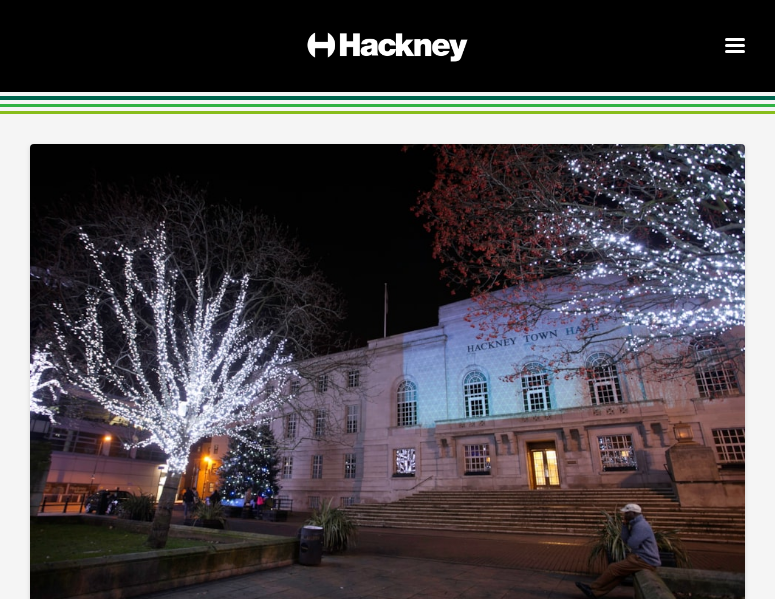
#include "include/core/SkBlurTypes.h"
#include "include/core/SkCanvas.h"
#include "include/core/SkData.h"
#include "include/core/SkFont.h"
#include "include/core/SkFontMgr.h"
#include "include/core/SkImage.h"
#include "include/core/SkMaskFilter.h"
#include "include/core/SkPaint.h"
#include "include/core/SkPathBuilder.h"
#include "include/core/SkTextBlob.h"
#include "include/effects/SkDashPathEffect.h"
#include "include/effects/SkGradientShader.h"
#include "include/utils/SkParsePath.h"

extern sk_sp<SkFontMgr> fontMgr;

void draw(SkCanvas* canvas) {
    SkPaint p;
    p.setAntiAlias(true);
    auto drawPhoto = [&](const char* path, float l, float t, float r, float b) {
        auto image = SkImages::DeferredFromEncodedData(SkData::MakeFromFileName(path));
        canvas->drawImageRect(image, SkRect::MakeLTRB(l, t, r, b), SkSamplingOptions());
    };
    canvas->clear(0xFFF5F5F5);
    p.setColor(0xFF000000);
    canvas->drawRect(SkRect::MakeLTRB(0, 0, 775, 92), p);
    drawPhoto("media/1.png", 307, 32, 468, 62);
    p.setColor(0xFFFFFFFF);
    canvas->drawRoundRect(SkRect::MakeLTRB(725, 44, 745, 47), 1.5f, 1.5f, p);
    canvas->drawRoundRect(SkRect::MakeLTRB(725, 38, 745, 41), 1.5f, 1.5f, p);
    canvas->drawRoundRect(SkRect::MakeLTRB(725, 50, 745, 53), 1.5f, 1.5f, p);
    {
        const struct { float l, t, r, b; SkColor color; } items[] = {
            {0, 96, 775, 100, 0xFF00664F},
            {0, 104, 775, 107, 0xFF30B244},
            {0, 111, 775, 114, 0xFF87BD1A},
        };
        for (auto [l, t, r, b, color] : items) {
            p.setColor(color);
            canvas->drawRect(SkRect::MakeLTRB(l, t, r, b), p);
        }
    }
    p.setColor(0x26000000);
    p.setMaskFilter(SkMaskFilter::MakeBlur(kNormal_SkBlurStyle, 2));
    canvas->drawRoundRect(SkRect::MakeLTRB(30, 146, 745, 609), 4, 4, p);
    p.setMaskFilter(nullptr);
    drawPhoto("media/2.png", 30, 144, 745, 599);
}
